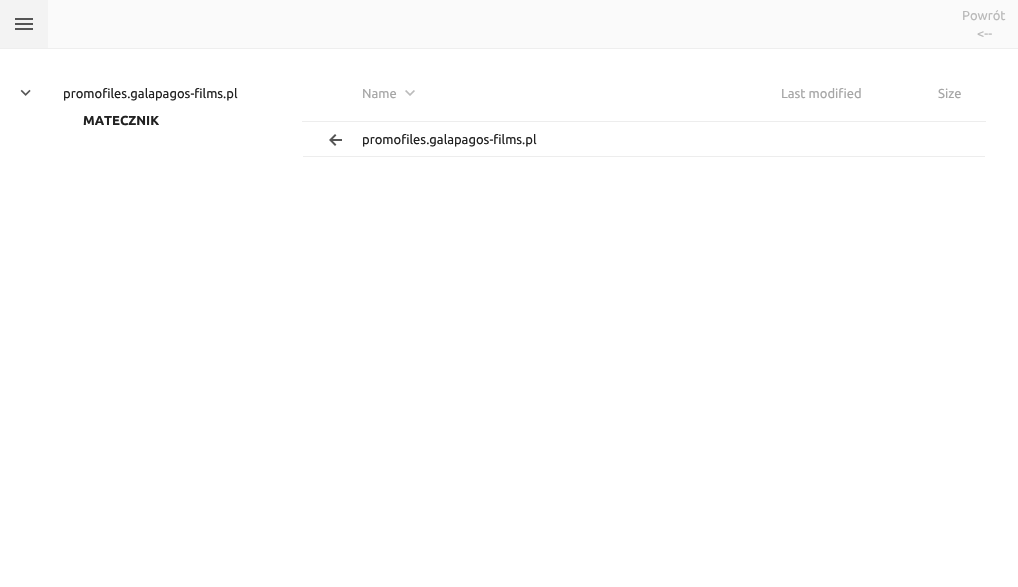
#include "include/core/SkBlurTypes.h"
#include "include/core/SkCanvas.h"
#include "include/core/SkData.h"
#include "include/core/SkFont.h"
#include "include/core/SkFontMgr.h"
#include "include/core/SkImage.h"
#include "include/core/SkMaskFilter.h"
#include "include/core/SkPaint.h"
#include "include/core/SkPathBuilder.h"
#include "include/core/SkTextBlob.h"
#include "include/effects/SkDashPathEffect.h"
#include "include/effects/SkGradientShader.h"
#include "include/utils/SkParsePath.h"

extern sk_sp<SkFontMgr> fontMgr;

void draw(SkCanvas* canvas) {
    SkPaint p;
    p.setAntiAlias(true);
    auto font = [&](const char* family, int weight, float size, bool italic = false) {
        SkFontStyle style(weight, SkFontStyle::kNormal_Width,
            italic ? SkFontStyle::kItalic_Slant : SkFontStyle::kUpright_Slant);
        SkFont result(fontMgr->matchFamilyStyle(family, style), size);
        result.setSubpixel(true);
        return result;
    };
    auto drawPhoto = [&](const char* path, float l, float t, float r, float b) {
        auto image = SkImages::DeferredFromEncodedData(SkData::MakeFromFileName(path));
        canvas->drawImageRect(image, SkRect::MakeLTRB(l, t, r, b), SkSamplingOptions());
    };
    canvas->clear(0xFFFFFFFF);
    {
        const struct { float l, t, r, b; SkColor color; } items[] = {
            {48, 0, 1018, 48, 0xFFFAFAFA},
            {0, 48, 1018, 49, 0xFFEEEEEE},
            {0, 0, 48, 48, 0xFFF3F3F3},
        };
        for (auto [l, t, r, b, color] : items) {
            p.setColor(color);
            canvas->drawRect(SkRect::MakeLTRB(l, t, r, b), p);
        }
    }
    drawPhoto("media/1.png", 15, 18, 33, 30);
    auto font1 = font("Ubuntu", 400, 13);
    p.setColor(0xFFB9B9B9);
    canvas->drawString("Powrót", 962, 20, font1, p);
    canvas->drawString("<--", 977, 38, font1, p);
    drawPhoto("media/2.png", 20, 89, 31, 96);
    p.setColor(0xFF212121);
    canvas->drawString("promofiles.galapagos-films.pl", 63, 98, font1, p);
    auto font2 = font("Ubuntu", 700, 13);
    canvas->drawString("MATECZNIK", 83, 125, font2, p);
    p.setColor(0xFFEDEDED);
    canvas->drawRect(SkRect::MakeLTRB(302, 121, 986, 122), p);
    p.setColor(0xFFA6A6A6);
    canvas->drawString("Name", 362, 98, font1, p);
    drawPhoto("media/3.png", 405, 90, 415, 96);
    canvas->drawString("Last modified", 781, 98, font1, p);
    canvas->drawString("Size", 938, 98, font1, p);
    p.setColor(0xFFEDEDED);
    canvas->drawRect(SkRect::MakeLTRB(303, 156, 985, 157), p);
    drawPhoto("media/4.png", 329, 134, 342, 146);
    p.setColor(0xFF212121);
    canvas->drawString("promofiles.galapagos-films.pl", 362, 144, font1, p);
}
